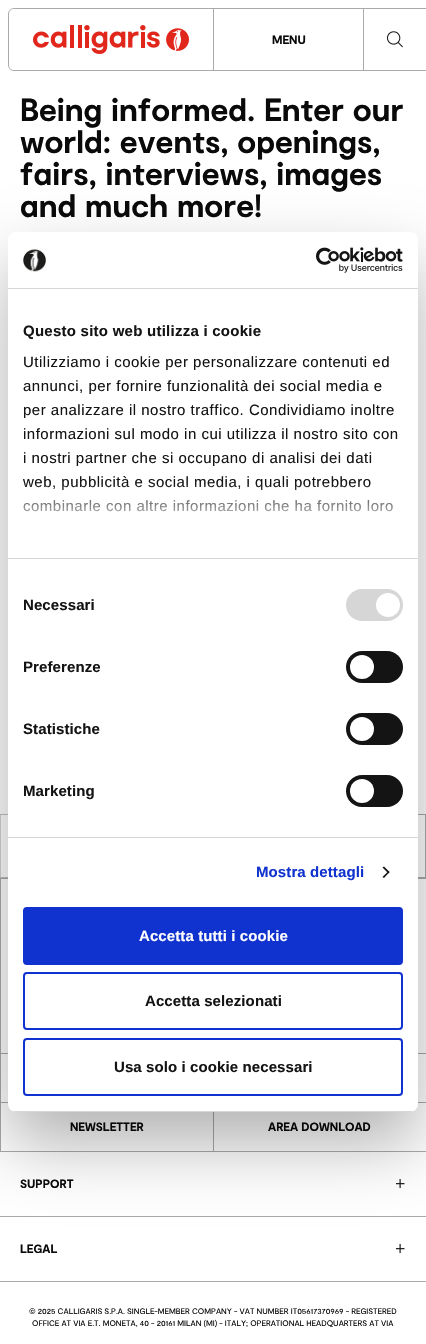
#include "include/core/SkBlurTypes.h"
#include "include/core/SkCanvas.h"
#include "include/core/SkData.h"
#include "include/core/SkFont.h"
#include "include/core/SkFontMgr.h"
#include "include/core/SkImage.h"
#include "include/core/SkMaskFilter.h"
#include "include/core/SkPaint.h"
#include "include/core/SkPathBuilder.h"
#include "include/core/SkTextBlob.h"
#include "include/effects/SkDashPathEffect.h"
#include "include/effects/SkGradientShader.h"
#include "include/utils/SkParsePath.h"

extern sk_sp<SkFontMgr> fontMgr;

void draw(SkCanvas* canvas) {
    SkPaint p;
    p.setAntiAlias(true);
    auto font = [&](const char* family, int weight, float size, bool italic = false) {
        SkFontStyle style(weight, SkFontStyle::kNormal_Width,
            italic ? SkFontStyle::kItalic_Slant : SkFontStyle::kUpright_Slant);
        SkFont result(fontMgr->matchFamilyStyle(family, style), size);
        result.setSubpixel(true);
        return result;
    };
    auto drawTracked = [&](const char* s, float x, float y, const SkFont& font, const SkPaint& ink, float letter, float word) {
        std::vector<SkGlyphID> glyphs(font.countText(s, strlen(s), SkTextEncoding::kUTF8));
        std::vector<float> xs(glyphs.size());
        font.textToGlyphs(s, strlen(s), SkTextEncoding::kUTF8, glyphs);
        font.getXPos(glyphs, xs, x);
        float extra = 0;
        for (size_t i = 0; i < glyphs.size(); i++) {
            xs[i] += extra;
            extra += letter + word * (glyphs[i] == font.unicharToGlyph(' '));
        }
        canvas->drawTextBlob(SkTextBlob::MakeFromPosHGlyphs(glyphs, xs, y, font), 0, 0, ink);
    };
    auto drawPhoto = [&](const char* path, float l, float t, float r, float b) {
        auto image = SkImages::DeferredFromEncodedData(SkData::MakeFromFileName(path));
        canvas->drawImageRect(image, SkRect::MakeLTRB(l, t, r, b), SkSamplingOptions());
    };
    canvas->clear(0xFFFFFFFF);
    p.setColor(0xFFA9AAAC);
    canvas->drawPath(SkPathBuilder(SkPathFillType::kEvenOdd).moveTo(14, 8).lineTo(213, 8).lineTo(213, 71).lineTo(14, 71).cubicTo(11, 71, 8, 68, 8, 65).lineTo(8, 14).cubicTo(8, 11, 11, 8, 14, 8).close().moveTo(14, 9).lineTo(213, 9).lineTo(213, 70).lineTo(14, 70).cubicTo(11, 70, 9, 68, 9, 65).lineTo(9, 14).cubicTo(9, 11, 11, 9, 14, 9).close().detach(), p);
    drawPhoto("media/1.png", 33, 25, 189, 54);
    {
        const struct { float l, t, r, b; SkColor color; } items[] = {
            {213, 8, 426, 9, 0xFFA9AAAC},
            {213, 70, 426, 71, 0xFFA9AAAC},
            {213, 8, 214, 71, 0xFFA9AAAC},
        };
        for (auto [l, t, r, b, color] : items) {
            p.setColor(color);
            canvas->drawRect(SkRect::MakeLTRB(l, t, r, b), p);
        }
    }
    auto font1 = font("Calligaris", 700, 12);
    p.setColor(0xFF0A0A0A);
    canvas->drawString("MENU", 272, 44, font1, p);
    p.setColor(0xFFA9AAAC);
    canvas->drawRect(SkRect::MakeLTRB(363, 8, 364, 71), p);
    drawPhoto("media/2.png", 387, 31, 403, 48);
    auto font2 = font("Calligaris", 700, 32);
    p.setColor(0xFF0A0A0A);
    {
        const struct { const char* s; float x, y; } items[] = {
            {"Being informed. Enter our", 20, 121},
            {"world: events, openings,", 20, 153},
            {"fairs, interviews, images", 20, 185},
            {"and much more!", 20, 217},
        };
        for (auto [s, x, y] : items) {
            canvas->drawString(s, x, y, font2, p);
        }
    }
    p.setColor(0xFFD4D5D6);
    canvas->drawRect(SkRect::MakeLTRB(0, 814, 8, 815), p);
    canvas->drawRect(SkRect::MakeLTRB(0, 877, 8, 878), p);
    p.setStyle(SkPaint::kStroke_Style);
    p.setStrokeWidth(1);
    p.setColor(0x80A9AAAC);
    canvas->drawRect(SkRect::MakeLTRB(0.5f, 814.5f, 63.5f, 877.5f), p);
    p.setColor(0xFFA9AAAC);
    canvas->drawRect(SkRect::MakeLTRB(362.5f, 814.5f, 425.5f, 877.5f), p);
    p.setStyle(SkPaint::kFill_Style);
    {
        const struct { float l, t, r, b; SkColor color; } items[] = {
            {0, 878, 426, 879, 0xFFA9AAAC},
            {0, 1151, 426, 1152, 0xFFA9AAAC},
            {0, 879, 1, 1151, 0xFFA9AAAC},
            {1, 1053, 8, 1054, 0xFFA9AAAC},
            {418, 1053, 426, 1054, 0xFFA9AAAC},
            {1, 1102, 8, 1103, 0xFFA9AAAC},
            {213, 1112, 214, 1151, 0xFFA9AAAC},
        };
        for (auto [l, t, r, b, color] : items) {
            p.setColor(color);
            canvas->drawRect(SkRect::MakeLTRB(l, t, r, b), p);
        }
    }
    p.setColor(0xFF0A0A0A);
    canvas->drawString("NEWSLETTER", 70, 1131, font1, p);
    p.setColor(0xFFA9AAAC);
    canvas->drawRect(SkRect::MakeLTRB(418, 1102, 426, 1103), p);
    p.setColor(0xFF0A0A0A);
    canvas->drawString("AREA DOWNLOAD", 268, 1131, font1, p);
    p.setColor(0xFFA9AAAC);
    canvas->drawRect(SkRect::MakeLTRB(0, 1216, 426, 1217), p);
    p.setColor(0xFF0A0A0A);
    canvas->drawString("SUPPORT", 20, 1188, font1, p);
    drawPhoto("media/3.png", 396, 1179, 405, 1189);
    p.setColor(0xFFA9AAAC);
    canvas->drawRect(SkRect::MakeLTRB(0, 1281, 426, 1282), p);
    p.setColor(0xFF0A0A0A);
    canvas->drawString("LEGAL", 20, 1253, font1, p);
    drawPhoto("media/3.png", 396, 1244, 405, 1254);
    auto font3 = font("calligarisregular", 400, 8);
    canvas->drawString("© 2025 CALLIGARIS S.P.A. SINGLE-MEMBER COMPANY - VAT NUMBER IT05617370969 - REGISTERED", 29, 1314, font3, p);
    canvas->drawString("OFFICE AT VIA E.T. MONETA, 40 - 20161 MILAN (MI) - ITALY; OPERATIONAL HEADQUARTERS AT VIA", 32, 1326, font3, p);
    p.setColor(0x4D000000);
    p.setMaskFilter(SkMaskFilter::MakeBlur(kNormal_SkBlurStyle, 34));
    canvas->drawRoundRect(SkRect::MakeLTRB(8, 264, 418, 1144), 8, 8, p);
    p.setMaskFilter(nullptr);
    p.setColor(0xFFFFFFFF);
    canvas->drawRoundRect(SkRect::MakeLTRB(8, 232, 418, 1112), 8, 8, p);
    p.setColor(0xFFD6D6D6);
    canvas->drawRect(SkRect::MakeLTRB(8, 288, 418, 289), p);
    drawPhoto("media/4.png", 23, 249, 46, 272);
    drawPhoto("media/5.png", 316, 247, 403, 273);
    canvas->drawRect(SkRect::MakeLTRB(8, 558, 418, 559), p);
    auto font4 = font("Liberation Sans", 700, 15);
    p.setColor(0xFF141414);
    drawTracked("Questo sito web utilizza i cookie", 23, 336, font4, p, 0.25f, 0);
    auto font5 = font("Liberation Sans", 400, 15);
    {
        const struct { const char* s; float x, y; } items[] = {
            {"Utilizziamo i cookie per personalizzare contenuti ed", 23, 367},
            {"annunci, per fornire funzionalità dei social media e", 23, 391},
            {"per analizzare il nostro traffico. Condividiamo inoltre", 23, 415},
            {"informazioni sul modo in cui utilizza il nostro sito con", 23, 439},
            {"i nostri partner che si occupano di analisi dei dati", 23, 463},
            {"web, pubblicità e social media, i quali potrebbero", 23, 487},
            {"combinarle con altre informazioni che ha fornito loro", 23, 511},
        };
        for (auto [s, x, y] : items) {
            drawTracked(s, x, y, font5, p, 0.5f, 0);
        }
    }
    {
        const SkColor colors[] = {0xFFFFFFFF, 0xCCFFFFFF, 0x00FFFFFF};
        const float stops[] = {0, 0.5f, 1};
        const SkPoint ends[] = {{207, 558}, {207, 483}};
        p.setShader(SkGradientShader::MakeLinear(ends, colors, stops, 3, SkTileMode::kClamp));
        p.setAlpha(255);
    }
    canvas->drawRect(SkRect::MakeLTRB(23, 484, 393, 512), p);
    p.setShader(nullptr);
    p.setColor(0xFFD6D6D6);
    canvas->drawRect(SkRect::MakeLTRB(8, 837, 418, 838), p);
    p.setColor(0xFF141414);
    drawTracked("Necessari", 23, 610, font4, p, 0.1f, 0);
    p.setColor(0xFFD6D6D6);
    canvas->drawRoundRect(SkRect::MakeLTRB(346, 589, 403, 621), 16, 16, p);
    p.setColor(0xFFFFFFFF);
    canvas->drawCircle(388, 605, 12, p);
    p.setColor(0xFF141414);
    drawTracked("Preferenze", 23, 672, font4, p, 0.1f, 0);
    canvas->drawRoundRect(SkRect::MakeLTRB(346, 651, 403, 683), 16, 16, p);
    p.setColor(0xFFFFFFFF);
    canvas->drawCircle(362, 667, 12, p);
    p.setColor(0xFF141414);
    drawTracked("Statistiche", 23, 734, font4, p, 0.1f, 0);
    canvas->drawRoundRect(SkRect::MakeLTRB(346, 713, 403, 745), 16, 16, p);
    p.setColor(0xFFFFFFFF);
    canvas->drawCircle(362, 729, 12, p);
    p.setColor(0xFF141414);
    drawTracked("Marketing", 23, 796, font4, p, 0.1f, 0);
    canvas->drawRoundRect(SkRect::MakeLTRB(346, 775, 403, 807), 16, 16, p);
    p.setColor(0xFFFFFFFF);
    canvas->drawCircle(362, 791, 12, p);
    p.setColor(0xFF1032CF);
    drawTracked("Mostra dettagli", 256, 877, font4, p, 0.1f, 0);
    p.setColor(0xFF141414);
    canvas->drawPath(SkPathBuilder().moveTo(384, 866.5f).lineTo(389.5f, 872).lineTo(388.5f, 873.5f).lineTo(382.5f, 867.5f).close().detach(), p);
    canvas->drawPath(SkPathBuilder().moveTo(388.5f, 871).lineTo(389.5f, 872).lineTo(384, 878).lineTo(382.5f, 877).close().detach(), p);
    canvas->save();
    canvas->clipPath(SkPathBuilder().moveTo(16, 232).lineTo(410, 232).cubicTo(414.5f, 232, 418, 235.5f, 418, 240).lineTo(418, 1104).cubicTo(418, 1108.5f, 414.5f, 1112, 410, 1112).lineTo(16, 1112).cubicTo(11.5f, 1112, 8, 1108.5f, 8, 1104).lineTo(8, 240).cubicTo(8, 235.5f, 11.5f, 232, 16, 232).close().detach(), true);
    p.setColor(0xFFD6D6D6);
    canvas->drawRect(SkRect::MakeLTRB(8, 1111, 418, 1112), p);
    canvas->restore();
    p.setColor(0xFF1032CF);
    canvas->drawRoundRect(SkRect::MakeLTRB(24, 908, 402, 964), 3, 3, p);
    p.setStyle(SkPaint::kStroke_Style);
    p.setStrokeWidth(2);
    canvas->drawRoundRect(SkRect::MakeLTRB(24, 908, 402, 964), 3, 3, p);
    p.setStyle(SkPaint::kFill_Style);
    p.setColor(0xFFFFFFFF);
    drawTracked("Accetta tutti i cookie", 139, 941, font4, p, 0.1f, 0);
    p.setStyle(SkPaint::kStroke_Style);
    p.setColor(0xFF1032CF);
    canvas->drawRoundRect(SkRect::MakeLTRB(24, 973, 402, 1029), 3, 3, p);
    p.setStyle(SkPaint::kFill_Style);
    p.setColor(0xFF141414);
    drawTracked("Accetta selezionati", 145, 1006, font4, p, 0.1f, 0);
    p.setStyle(SkPaint::kStroke_Style);
    p.setColor(0xFF1032CF);
    canvas->drawRoundRect(SkRect::MakeLTRB(24, 1039, 402, 1095), 3, 3, p);
    p.setStyle(SkPaint::kFill_Style);
    p.setColor(0xFF141414);
    drawTracked("Usa solo i cookie necessari", 114, 1072, font4, p, 0.1f, 0);
}
